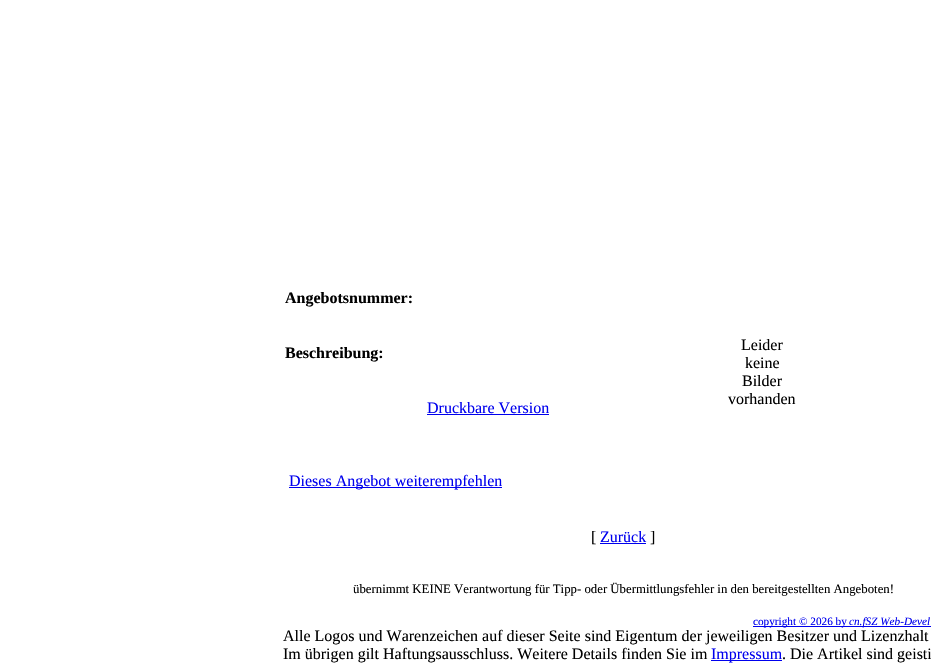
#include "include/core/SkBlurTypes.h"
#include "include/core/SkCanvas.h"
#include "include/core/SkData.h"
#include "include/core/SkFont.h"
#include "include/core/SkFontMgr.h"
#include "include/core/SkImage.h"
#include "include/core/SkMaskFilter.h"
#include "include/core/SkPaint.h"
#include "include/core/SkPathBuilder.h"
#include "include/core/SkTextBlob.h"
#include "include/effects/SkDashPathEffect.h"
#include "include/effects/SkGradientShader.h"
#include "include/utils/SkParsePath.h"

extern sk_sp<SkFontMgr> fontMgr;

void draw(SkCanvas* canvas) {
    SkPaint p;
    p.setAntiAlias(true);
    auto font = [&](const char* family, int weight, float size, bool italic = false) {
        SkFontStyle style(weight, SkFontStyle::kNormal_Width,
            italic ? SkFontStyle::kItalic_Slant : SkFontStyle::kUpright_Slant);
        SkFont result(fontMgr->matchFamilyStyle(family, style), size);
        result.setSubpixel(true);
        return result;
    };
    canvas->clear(0xFFFFFFFF);
    auto font1 = font("Liberation Serif", 700, 16);
    p.setColor(0xFF000000);
    canvas->drawString("Angebotsnummer:", 285, 303, font1, p);
    canvas->drawString("Beschreibung:", 285, 358, font1, p);
    auto font2 = font("Liberation Serif", 400, 16);
    p.setColor(0xFF0000EE);
    canvas->drawString("Druckbare Version", 427, 413, font2, p);
    canvas->drawRect(SkRect::MakeLTRB(427, 414, 549, 415), p);
    canvas->drawRect(SkRect::MakeLTRB(289, 487, 502, 488), p);
    canvas->drawString("Dieses Angebot weiterempfehlen", 289, 486, font2, p);
    p.setColor(0xFF000000);
    {
        const struct { const char* s; float x, y; } items[] = {
            {"Leider", 741, 350},
            {"keine", 745, 368},
            {"Bilder", 742, 386},
            {"vorhanden", 728, 404},
            {"[", 591, 542},
        };
        for (auto [s, x, y] : items) {
            canvas->drawString(s, x, y, font2, p);
        }
    }
    p.setColor(0xFF0000EE);
    canvas->drawString("Zurück", 600, 542, font2, p);
    canvas->drawRect(SkRect::MakeLTRB(600, 543, 646, 544), p);
    p.setColor(0xFF000000);
    canvas->drawString("]", 650, 542, font2, p);
    auto font3 = font("Liberation Serif", 400, 12.8f);
    canvas->drawString("übernimmt KEINE Verantwortung für Tipp- oder Übermittlungsfehler in den bereitgestellten Angeboten!", 353, 593, font3, p);
    p.setColor(0xFF0000EE);
    canvas->drawRect(SkRect::MakeLTRB(753, 626, 931, 627), p);
    auto font4 = font("Liberation Serif", 400, 11.25f);
    canvas->drawString("copyright © 2026 by", 753, 625, font4, p);
    auto font5 = font("Liberation Serif", 400, 11.25f, true);
    canvas->drawString("cn.fSZ Web-Devel", 849, 625, font5, p);
    p.setColor(0xFF000000);
    canvas->drawString("Alle Logos und Warenzeichen auf dieser Seite sind Eigentum der jeweiligen Besitzer und Lizenzhalt", 283, 641, font2, p);
    canvas->drawString("Im übrigen gilt Haftungsausschluss. Weitere Details finden Sie im", 283, 659, font2, p);
    p.setColor(0xFF0000EE);
    canvas->drawRect(SkRect::MakeLTRB(711, 660, 782, 661), p);
    canvas->drawString("Impressum", 711, 659, font2, p);
    p.setColor(0xFF000000);
    canvas->drawString(". Die Artikel sind geisti", 782, 659, font2, p);
}
